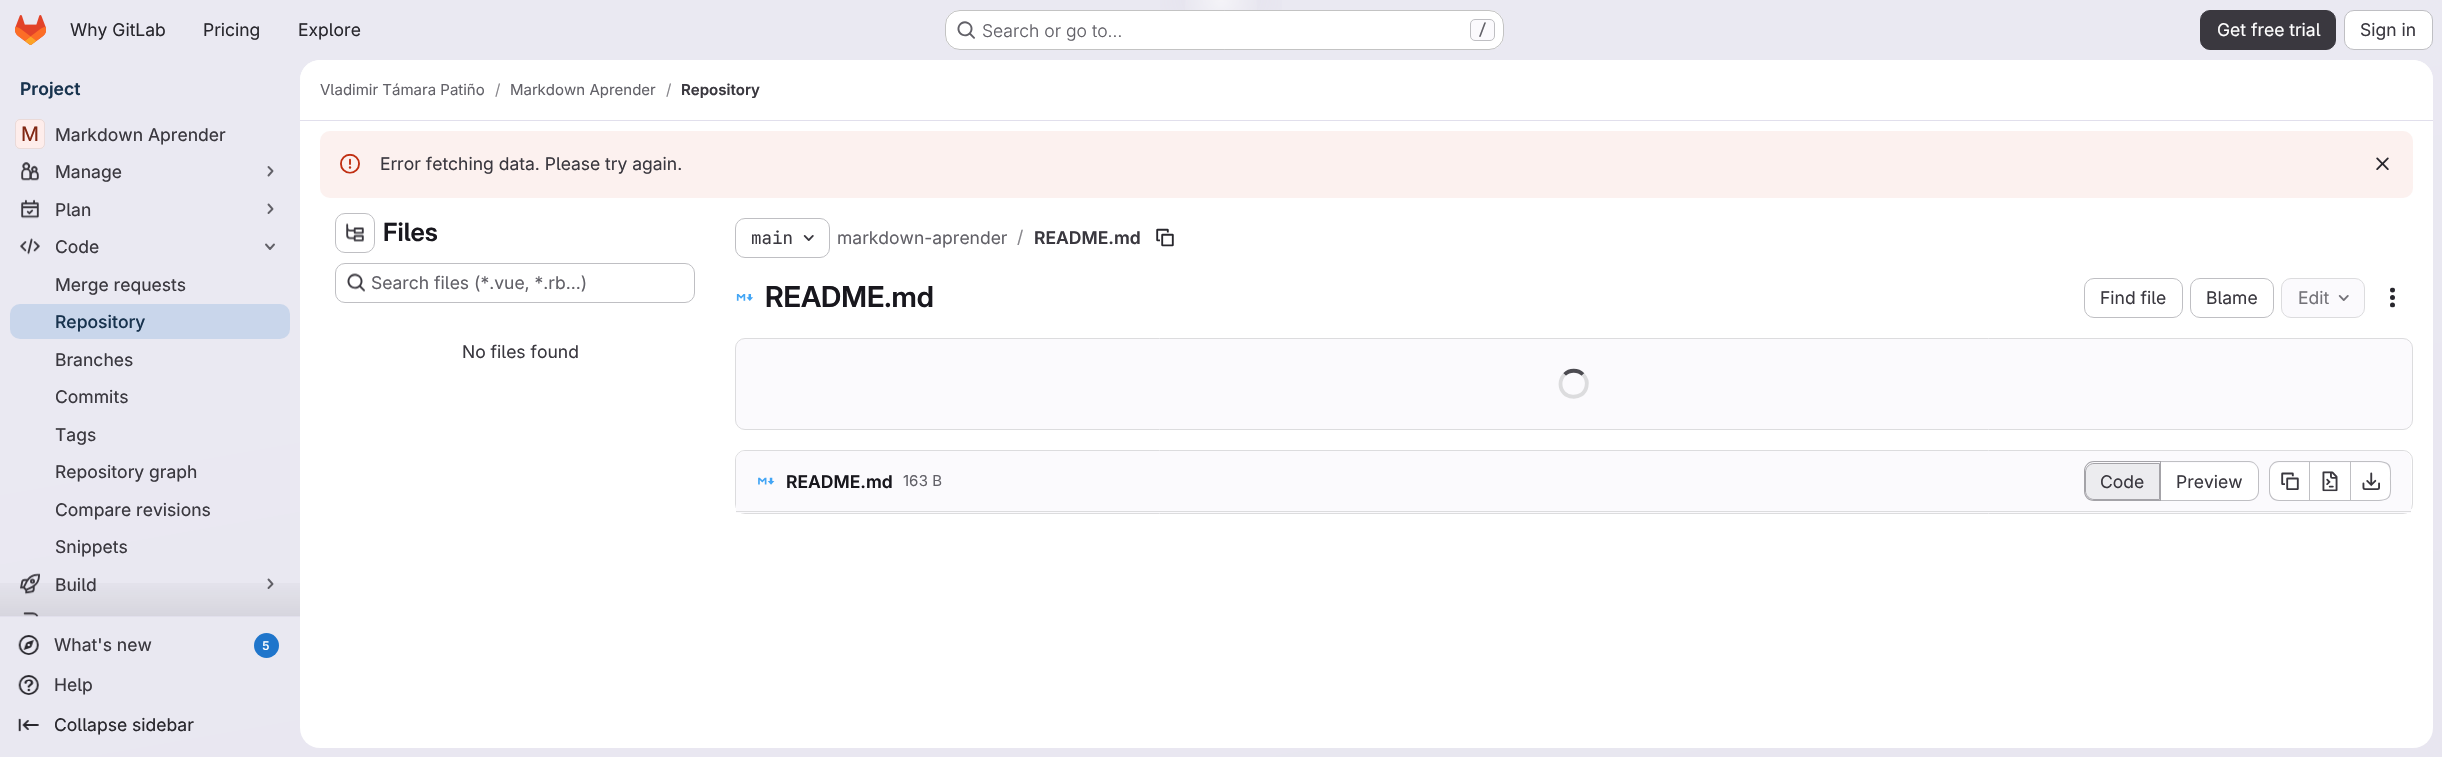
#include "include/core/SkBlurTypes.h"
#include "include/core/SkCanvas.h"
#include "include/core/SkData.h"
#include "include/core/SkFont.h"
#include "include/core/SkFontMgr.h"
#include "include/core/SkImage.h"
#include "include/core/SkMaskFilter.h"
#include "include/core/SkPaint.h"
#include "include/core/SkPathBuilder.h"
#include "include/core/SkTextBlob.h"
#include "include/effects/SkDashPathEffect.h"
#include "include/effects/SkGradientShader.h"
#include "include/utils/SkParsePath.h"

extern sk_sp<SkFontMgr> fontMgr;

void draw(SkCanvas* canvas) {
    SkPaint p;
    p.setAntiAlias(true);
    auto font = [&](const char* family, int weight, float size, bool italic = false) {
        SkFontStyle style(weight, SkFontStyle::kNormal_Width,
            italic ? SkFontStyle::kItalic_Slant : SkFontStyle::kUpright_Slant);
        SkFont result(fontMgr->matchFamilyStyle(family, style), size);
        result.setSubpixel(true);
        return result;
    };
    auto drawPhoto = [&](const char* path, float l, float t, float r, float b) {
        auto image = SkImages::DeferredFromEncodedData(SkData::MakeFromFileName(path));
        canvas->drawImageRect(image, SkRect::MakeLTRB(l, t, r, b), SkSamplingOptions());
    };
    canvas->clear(0xFFFFFFFF);
    {
        const SkColor colors[] = {0xFFE8E6F0, 0xFFEAE9F2};
        const float stops[] = {0, 0.7f};
        const SkPoint ends[] = {{1323, 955}, {1120, -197}};
        p.setShader(SkGradientShader::MakeLinear(ends, colors, stops, 2, SkTileMode::kClamp));
        p.setAlpha(255);
    }
    canvas->drawRect(SkRect::MakeLTRB(0, 0, 2442, 757), p);
    {
        const SkColor colors[] = {0xFFE4E2ED, 0x00E4E2ED};
        const float stops[] = {0, 0.07f};
        SkMatrix m = SkMatrix::Translate(1221, 0).preScale(1221, 758);
        p.setShader(SkGradientShader::MakeRadial({0, 0}, 1, colors, stops, 2, SkTileMode::kClamp, 0, &m));
        p.setAlpha(255);
    }
    canvas->drawRect(SkRect::MakeLTRB(1160, 0, 1282, 10), p);
    {
        const SkColor colors[] = {0xFFE4E2EC, 0x00E4E2EC};
        const float stops[] = {0, 0.05f};
        SkMatrix m = SkMatrix::Translate(1221, 0).preScale(1221, 758);
        p.setShader(SkGradientShader::MakeRadial({0, 0}, 1, colors, stops, 2, SkTileMode::kClamp, 0, &m));
        p.setAlpha(255);
    }
    canvas->drawRect(SkRect::MakeLTRB(1215, 0, 1227, 1), p);
    {
        const SkColor colors[] = {0x99FFFFFF, 0x00FFFFFF};
        const float stops[] = {0, 0.03f};
        p.setShader(SkGradientShader::MakeRadial({1221, 0}, 1437, colors, stops, 2, SkTileMode::kClamp));
        p.setAlpha(255);
    }
    canvas->drawRect(SkRect::MakeLTRB(1185, 0, 1257, 10), p);
    drawPhoto("media/1.png", 15, 15, 46, 45);
    auto font1 = font("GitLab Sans", 400, 17.5f);
    p.setShader(nullptr);
    p.setColor(0xFF28272D);
    {
        const struct { const char* s; float x, y; } items[] = {
            {"Why GitLab", 70, 36},
            {"Pricing", 203, 36},
            {"Explore", 298, 36},
        };
        for (auto [s, x, y] : items) {
            canvas->drawString(s, x, y, font1, p);
        }
    }
    p.setColor(0xFFFFFFFF);
    canvas->drawRoundRect(SkRect::MakeLTRB(945, 10, 1504, 50), 15, 15, p);
    p.setStyle(SkPaint::kStroke_Style);
    p.setStrokeWidth(1);
    p.setColor(0x3D050506);
    canvas->drawRoundRect(SkRect::MakeLTRB(945.5f, 10.5f, 1503.5f, 49.5f), 14.5f, 14.5f, p);
    drawPhoto("media/2.png", 957, 21, 975, 39);
    auto font2 = font("GitLab Sans", 300, 17.5f);
    p.setStyle(SkPaint::kFill_Style);
    p.setColor(0xFF626168);
    canvas->drawString("Search or go to…", 982, 37, font2, p);
    p.setColor(0xFFFBFAFD);
    canvas->drawRoundRect(SkRect::MakeLTRB(1470.5f, 19.5f, 1494.5f, 40.5f), 4.5f, 4.5f, p);
    p.setStyle(SkPaint::kStroke_Style);
    p.setColor(0xFFBFBFC3);
    canvas->drawRoundRect(SkRect::MakeLTRB(1470.5f, 19.5f, 1494.5f, 40.5f), 4.5f, 4.5f, p);
    auto font3 = font("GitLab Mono", 500, 15);
    p.setStyle(SkPaint::kFill_Style);
    p.setColor(0xFF626168);
    canvas->drawString("/", 1478, 35, font3, p);
    p.setColor(0xFF3A383F);
    canvas->drawRoundRect(SkRect::MakeLTRB(2200.5f, 10.5f, 2335.5f, 49.5f), 9.5f, 9.5f, p);
    p.setStyle(SkPaint::kStroke_Style);
    canvas->drawRoundRect(SkRect::MakeLTRB(2200.5f, 10.5f, 2335.5f, 49.5f), 9.5f, 9.5f, p);
    p.setStyle(SkPaint::kFill_Style);
    p.setColor(0xFFFFFFFF);
    canvas->drawString("Get free trial", 2217, 36, font1, p);
    canvas->drawRoundRect(SkRect::MakeLTRB(2344.5f, 10.5f, 2432.5f, 49.5f), 9.5f, 9.5f, p);
    p.setStyle(SkPaint::kStroke_Style);
    p.setColor(0xFFBFBFC3);
    canvas->drawRoundRect(SkRect::MakeLTRB(2344.5f, 10.5f, 2432.5f, 49.5f), 9.5f, 9.5f, p);
    p.setStyle(SkPaint::kFill_Style);
    p.setColor(0xFF3A383F);
    canvas->drawString("Sign in", 2360, 36, font1, p);
    auto font4 = font("GitLab Sans", 600, 17.5f);
    p.setColor(0xFF18334E);
    canvas->drawString("Project", 20, 95, font4, p);
    p.setColor(0xFFE1DFEC);
    canvas->drawRect(SkRect::MakeLTRB(0, 616, 300, 617), p);
    p.setColor(0xFFFFFFFF);
    canvas->drawRoundRect(SkRect::MakeLTRB(15, 119, 45, 149), 5, 5, p);
    p.setColor(0x3DFCB5AA);
    canvas->drawRoundRect(SkRect::MakeLTRB(15, 119, 45, 149), 5, 5, p);
    p.setStyle(SkPaint::kStroke_Style);
    p.setColor(0x14050506);
    canvas->drawRoundRect(SkRect::MakeLTRB(15.5f, 119.5f, 44.5f, 148.5f), 4.5f, 4.5f, p);
    auto font5 = font("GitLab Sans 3", 400, 20);
    p.setStyle(SkPaint::kFill_Style);
    p.setColor(0xFF812713);
    canvas->drawString("M", 21, 141, font5, p);
    auto font6 = font("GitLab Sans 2", 400, 17.5f);
    p.setColor(0xFF3A383F);
    canvas->drawString("Markdown Aprender", 55, 141, font6, p);
    drawPhoto("media/3.png", 21, 162, 39, 181);
    canvas->drawString("Manage", 55, 178, font6, p);
    p.setStyle(SkPaint::kStroke_Style);
    p.setStrokeWidth(1.9f);
    p.setStrokeCap(SkPaint::kRound_Cap);
    p.setStrokeJoin(SkPaint::kRound_Join);
    p.setColor(0xFF626168);
    canvas->drawPath(SkPathBuilder().moveTo(268.5f, 167).lineTo(272.5f, 171).lineTo(268.5f, 175.5f).detach(), p);
    drawPhoto("media/4.png", 21, 199, 39, 219);
    p.setStyle(SkPaint::kFill_Style);
    p.setColor(0xFF3A383F);
    canvas->drawString("Plan", 55, 216, font6, p);
    p.setStyle(SkPaint::kStroke_Style);
    p.setColor(0xFF626168);
    canvas->drawPath(SkPathBuilder().moveTo(268.5f, 204.5f).lineTo(272.5f, 209).lineTo(268.5f, 213).detach(), p);
    drawPhoto("media/5.png", 20, 238, 40, 255);
    p.setStyle(SkPaint::kFill_Style);
    p.setColor(0xFF3A383F);
    canvas->drawString("Code", 55, 253, font6, p);
    p.setStyle(SkPaint::kStroke_Style);
    p.setColor(0xFF626168);
    canvas->drawPath(SkPathBuilder().moveTo(274, 244.5f).lineTo(270, 249).lineTo(266, 244.5f).detach(), p);
    p.setStyle(SkPaint::kFill_Style);
    p.setColor(0xFF3A383F);
    canvas->drawString("Merge requests", 55, 291, font6, p);
    p.setColor(0xFFC9D6EB);
    canvas->drawRoundRect(SkRect::MakeLTRB(10, 304, 290, 339), 10, 10, p);
    auto font7 = font("GitLab Sans", 500, 17.5f);
    p.setColor(0xFF18334E);
    canvas->drawString("Repository", 55, 328, font7, p);
    p.setColor(0xFF3A383F);
    {
        const struct { const char* s; float x, y; } items[] = {
            {"Branches", 55, 366},
            {"Commits", 55, 403},
            {"Tags", 55, 441},
            {"Repository graph", 55, 478},
            {"Compare revisions", 55, 516},
            {"Snippets", 55, 553},
        };
        for (auto [s, x, y] : items) {
            canvas->drawString(s, x, y, font6, p);
        }
    }
    drawPhoto("media/6.png", 20, 573, 40, 595);
    canvas->drawString("Build", 55, 591, font6, p);
    p.setStyle(SkPaint::kStroke_Style);
    p.setColor(0xFF626168);
    canvas->drawPath(SkPathBuilder().moveTo(268.5f, 579.5f).lineTo(272.5f, 584).lineTo(268.5f, 588).detach(), p);
    drawPhoto("media/7.png", 23, 612, 39, 617);
    p.setStyle(SkPaint::kFill_Style);
    {
        const SkColor colors[] = {0x00050506, 0x14050506};
        const float stops[] = {0, 1};
        const SkPoint ends[] = {{150, 571}, {150, 616}};
        p.setShader(SkGradientShader::MakeLinear(ends, colors, stops, 2, SkTileMode::kClamp));
        p.setAlpha(255);
    }
    canvas->drawRect(SkRect::MakeLTRB(0, 583, 300, 616), p);
    drawPhoto("media/8.png", 18, 635, 39, 655);
    p.setShader(nullptr);
    p.setColor(0xFF3A383F);
    canvas->drawString("What's new", 54, 651, font6, p);
    p.setColor(0xFF1F75CB);
    canvas->drawCircle(266.5f, 645.5f, 12.5f, p);
    auto font8 = font("GitLab Sans", 500, 12);
    p.setColor(0xFFFFFFFF);
    canvas->drawString("5", 262, 650, font8, p);
    drawPhoto("media/9.png", 18, 675, 39, 695);
    p.setColor(0xFF3A383F);
    canvas->drawString("Help", 54, 691, font6, p);
    drawPhoto("media/10.png", 18, 718, 39, 732);
    p.setColor(0xFF28272D);
    canvas->drawString("Collapse sidebar", 54, 731, font6, p);
    p.setColor(0xFFFFFFFF);
    canvas->drawRoundRect(SkRect::MakeLTRB(300, 60, 2433, 748), 20, 20, p);
    canvas->drawPath(SkPathBuilder().moveTo(320, 60).lineTo(2413, 60).cubicTo(2424, 60, 2433, 69, 2433, 80).lineTo(2433, 121).lineTo(300, 121).lineTo(300, 80).cubicTo(300, 69, 309, 60, 320, 60).close().detach(), p);
    p.setColor(0xFFE1DFEC);
    canvas->drawRect(SkRect::MakeLTRB(300, 120, 2433, 121), p);
    auto font9 = font("GitLab Sans", 400, 15);
    p.setColor(0xFF626168);
    canvas->drawString("Vladimir Támara Patiño", 320, 95, font9, p);
    p.setColor(0xFF89888D);
    canvas->drawString("/", 495, 95, font9, p);
    p.setColor(0xFF626168);
    canvas->drawString("Markdown Aprender", 510, 95, font9, p);
    p.setColor(0xFF89888D);
    canvas->drawString("/", 666, 95, font9, p);
    auto font10 = font("GitLab Sans", 600, 15);
    p.setColor(0xFF3A383F);
    canvas->drawString("Repository", 681, 95, font10, p);
    p.setColor(0xFFFCF1EF);
    canvas->drawRoundRect(SkRect::MakeLTRB(320, 131, 2413, 198), 10, 10, p);
    drawPhoto("media/11.png", 340, 153, 360, 174);
    p.setColor(0xFF3A383F);
    canvas->drawString("Error fetching data. Please try again.", 380, 170, font1, p);
    drawPhoto("media/12.png", 2376, 157, 2389, 170);
    p.setStyle(SkPaint::kStroke_Style);
    p.setStrokeWidth(1);
    p.setStrokeCap(SkPaint::kButt_Cap);
    p.setStrokeJoin(SkPaint::kMiter_Join);
    p.setColor(0xFFBFBFC3);
    canvas->drawRoundRect(SkRect::MakeLTRB(335.5f, 213.5f, 374.5f, 252.5f), 9.5f, 9.5f, p);
    drawPhoto("media/13.png", 346, 223, 364, 242);
    auto font11 = font("GitLab Sans 3", 600, 25);
    p.setStyle(SkPaint::kFill_Style);
    p.setColor(0xFF18171D);
    canvas->drawString("Files", 383, 241, font11, p);
    p.setStyle(SkPaint::kStroke_Style);
    p.setColor(0xFFBFBFC3);
    canvas->drawRoundRect(SkRect::MakeLTRB(335.5f, 263.5f, 694.5f, 302.5f), 9.5f, 9.5f, p);
    drawPhoto("media/14.png", 347, 273, 365, 292);
    p.setStyle(SkPaint::kFill_Style);
    p.setColor(0xFF626168);
    canvas->drawString("Search files (*.vue, *.rb...)", 371, 289, font1, p);
    p.setColor(0xFF3A383F);
    canvas->drawString("No files found", 462, 358, font1, p);
    p.setStyle(SkPaint::kStroke_Style);
    p.setColor(0xFFBFBFC3);
    canvas->drawRoundRect(SkRect::MakeLTRB(735.5f, 218.5f, 829.5f, 257.5f), 9.5f, 9.5f, p);
    auto font12 = font("GitLab Mono", 400, 17.5f);
    p.setStyle(SkPaint::kFill_Style);
    p.setColor(0xFF3A383F);
    canvas->drawString("main", 751, 244, font12, p);
    drawPhoto("media/15.png", 803, 235, 814, 241);
    p.setColor(0xFF626168);
    canvas->drawString("markdown-aprender", 837, 244, font1, p);
    p.setColor(0xFF89888D);
    canvas->drawString("/", 1017, 243, font1, p);
    p.setColor(0xFF3A383F);
    canvas->drawString("README.md", 1034, 244, font4, p);
    drawPhoto("media/16.png", 1156, 228, 1174, 247);
    drawPhoto("media/17.png", 736, 294, 753, 301);
    auto font13 = font("GitLab Sans 2", 600, 28.75f);
    p.setColor(0xFF18171D);
    canvas->drawString("README.md", 765, 307, font13, p);
    p.setStyle(SkPaint::kStroke_Style);
    p.setColor(0xFFBFBFC3);
    canvas->drawRoundRect(SkRect::MakeLTRB(2084.5f, 278.5f, 2182.5f, 317.5f), 9.5f, 9.5f, p);
    p.setStyle(SkPaint::kFill_Style);
    p.setColor(0xFF3A383F);
    canvas->drawString("Find file", 2100, 304, font1, p);
    p.setStyle(SkPaint::kStroke_Style);
    p.setColor(0xFFBFBFC3);
    canvas->drawRoundRect(SkRect::MakeLTRB(2190.5f, 278.5f, 2273.5f, 317.5f), 9.5f, 9.5f, p);
    p.setStyle(SkPaint::kFill_Style);
    p.setColor(0xFF3A383F);
    canvas->drawString("Blame", 2206, 304, font1, p);
    p.setColor(0xFFFBFAFD);
    canvas->drawRoundRect(SkRect::MakeLTRB(2281.5f, 278.5f, 2364.5f, 317.5f), 9.5f, 9.5f, p);
    p.setStyle(SkPaint::kStroke_Style);
    p.setColor(0xFFDCDCDE);
    canvas->drawRoundRect(SkRect::MakeLTRB(2281.5f, 278.5f, 2364.5f, 317.5f), 9.5f, 9.5f, p);
    p.setStyle(SkPaint::kFill_Style);
    p.setColor(0xFF737278);
    canvas->drawString("Edit", 2298, 304, font1, p);
    drawPhoto("media/18.png", 2338, 295, 2349, 301);
    drawPhoto("media/19.png", 2390, 287, 2395, 308);
    p.setColor(0xFFFBFAFD);
    canvas->drawRoundRect(SkRect::MakeLTRB(735.5f, 338.5f, 2412.5f, 429.5f), 9.5f, 9.5f, p);
    p.setStyle(SkPaint::kStroke_Style);
    p.setColor(0xFFDCDCDE);
    canvas->drawRoundRect(SkRect::MakeLTRB(735.5f, 338.5f, 2412.5f, 429.5f), 9.5f, 9.5f, p);
    p.setStrokeWidth(3.8f);
    p.setColor(0xFF4C4B51);
    canvas->drawPath(SkPathBuilder().moveTo(1564.5f, 374.5f).cubicTo(1569.5f, 369.5f, 1578, 369.5f, 1583, 374.5f).detach(), p);
    p.setColor(0xFFDCDCDE);
    canvas->drawPath(SkPathBuilder().moveTo(1583, 374.5f).cubicTo(1586, 377.5f, 1587.5f, 382, 1586.5f, 386.5f).cubicTo(1583.5f, 401.5f, 1560.5f, 399.5f, 1560.5f, 384).cubicTo(1560.5f, 380.5f, 1562, 377, 1564.5f, 374.5f).detach(), p);
    p.setStrokeWidth(1);
    canvas->drawRoundRect(SkRect::MakeLTRB(735.5f, 450.5f, 2412.5f, 513.5f), 9.5f, 9.5f, p);
    p.setStyle(SkPaint::kFill_Style);
    p.setColor(0xFFFBFAFD);
    canvas->drawPath(SkPathBuilder().moveTo(745, 451).lineTo(2402, 451).cubicTo(2407, 451, 2411, 455, 2411, 460).lineTo(2411, 513).lineTo(736, 513).lineTo(736, 460).cubicTo(736, 455, 740, 451, 745, 451).close().detach(), p);
    p.setColor(0xFFDCDCDE);
    canvas->drawRect(SkRect::MakeLTRB(736, 511, 2411, 512), p);
    drawPhoto("media/20.png", 758, 477, 775, 485);
    p.setColor(0xFF18171D);
    canvas->drawString("README.md", 786, 488, font4, p);
    p.setColor(0xFF626168);
    canvas->drawString("163 B", 903, 486, font9, p);
    p.setColor(0xFFECECEF);
    canvas->drawPath(SkPathBuilder().moveTo(2094, 463.5f).lineTo(2159.5f, 463.5f).lineTo(2159.5f, 499.5f).lineTo(2094, 499.5f).cubicTo(2089.5f, 499.5f, 2085.5f, 495.5f, 2085.5f, 491).lineTo(2085.5f, 472).cubicTo(2085.5f, 467.5f, 2089.5f, 463.5f, 2094, 463.5f).close().detach(), p);
    p.setStyle(SkPaint::kStroke_Style);
    p.setColor(0xFFA4A3A8);
    canvas->drawPath(SkPathBuilder().moveTo(2094, 463.5f).lineTo(2159.5f, 463.5f).lineTo(2159.5f, 499.5f).lineTo(2094, 499.5f).cubicTo(2089.5f, 499.5f, 2085.5f, 495.5f, 2085.5f, 491).lineTo(2085.5f, 472).cubicTo(2085.5f, 467.5f, 2089.5f, 463.5f, 2094, 463.5f).close().detach(), p);
    p.setStyle(SkPaint::kFill_Style);
    canvas->drawPath(SkPathBuilder(SkPathFillType::kEvenOdd).moveTo(2094, 461).lineTo(2160, 461).lineTo(2160, 501).lineTo(2094, 501).cubicTo(2088, 501, 2084, 497, 2084, 491).lineTo(2084, 471).cubicTo(2084, 466, 2088, 461, 2094, 461).close().moveTo(2094, 462).lineTo(2160, 462).lineTo(2160, 500).lineTo(2094, 500).cubicTo(2089, 500, 2085, 496, 2085, 491).lineTo(2085, 471).cubicTo(2085, 466, 2089, 462, 2094, 462).close().detach(), p);
    p.setColor(0xFF3A383F);
    canvas->drawString("Code", 2100, 488, font1, p);
    p.setColor(0xFFFFFFFF);
    canvas->drawPath(SkPathBuilder().moveTo(2161, 463).lineTo(2249, 463).cubicTo(2254, 463, 2258, 467, 2258, 472).lineTo(2258, 491).cubicTo(2258, 496, 2254, 500, 2249, 500).lineTo(2161, 500).close().detach(), p);
    p.setColor(0xFFBFBFC3);
    canvas->drawPath(SkPathBuilder(SkPathFillType::kEvenOdd).moveTo(2161, 461).lineTo(2249, 461).cubicTo(2254, 461, 2259, 466, 2259, 471).lineTo(2259, 491).cubicTo(2259, 497, 2254, 501, 2249, 501).lineTo(2161, 501).close().moveTo(2161, 462).lineTo(2249, 462).cubicTo(2254, 462, 2258, 466, 2258, 471).lineTo(2258, 491).cubicTo(2258, 496, 2254, 500, 2249, 500).lineTo(2161, 500).close().detach(), p);
    p.setColor(0xFFA4A3A8);
    canvas->drawRect(SkRect::MakeLTRB(2160, 461, 2161, 501), p);
    p.setColor(0xFF3A383F);
    canvas->drawString("Preview", 2176, 488, font1, p);
    p.setColor(0xFFFFFFFF);
    canvas->drawPath(SkPathBuilder().moveTo(2279, 463).lineTo(2309, 463).lineTo(2309, 500).lineTo(2279, 500).cubicTo(2274, 500, 2270, 496, 2270, 491).lineTo(2270, 472).cubicTo(2270, 467, 2274, 463, 2279, 463).close().detach(), p);
    p.setColor(0xFFBFBFC3);
    canvas->drawPath(SkPathBuilder(SkPathFillType::kEvenOdd).moveTo(2279, 461).lineTo(2309, 461).lineTo(2309, 501).lineTo(2279, 501).cubicTo(2273, 501, 2269, 497, 2269, 491).lineTo(2269, 471).cubicTo(2269, 466, 2273, 461, 2279, 461).close().moveTo(2279, 462).lineTo(2309, 462).lineTo(2309, 500).lineTo(2279, 500).cubicTo(2274, 500, 2270, 496, 2270, 491).lineTo(2270, 471).cubicTo(2270, 466, 2274, 462, 2279, 462).close().detach(), p);
    drawPhoto("media/21.png", 2281, 472, 2299, 490);
    {
        const struct { float l, t, r, b; SkColor color; } items[] = {
            {2310, 463, 2350, 500, 0xFFFFFFFF},
            {2310, 461, 2350, 462, 0xFFBFBFC3},
            {2310, 500, 2350, 501, 0xFFBFBFC3},
            {2309, 461, 2310, 501, 0xFFBFBFC3},
        };
        for (auto [l, t, r, b, color] : items) {
            p.setColor(color);
            canvas->drawRect(SkRect::MakeLTRB(l, t, r, b), p);
        }
    }
    drawPhoto("media/22.png", 2322, 471, 2338, 492);
    p.setColor(0xFFFFFFFF);
    canvas->drawPath(SkPathBuilder().moveTo(2351, 463).lineTo(2381, 463).cubicTo(2386, 463, 2390, 467, 2390, 472).lineTo(2390, 491).cubicTo(2390, 496, 2386, 500, 2381, 500).lineTo(2351, 500).close().detach(), p);
    p.setColor(0xFFBFBFC3);
    canvas->drawPath(SkPathBuilder(SkPathFillType::kEvenOdd).moveTo(2351, 461).lineTo(2376, 461).cubicTo(2393, 461, 2391, 467, 2391, 481).cubicTo(2391, 495, 2393, 501, 2376, 501).lineTo(2351, 501).close().moveTo(2351, 462).lineTo(2376, 462).cubicTo(2392, 462, 2390, 468, 2390, 481).cubicTo(2390, 495, 2392, 500, 2376, 500).lineTo(2351, 500).close().detach(), p);
    canvas->drawRect(SkRect::MakeLTRB(2350, 461, 2351, 501), p);
    drawPhoto("media/23.png", 2362, 472, 2380, 490);
}
